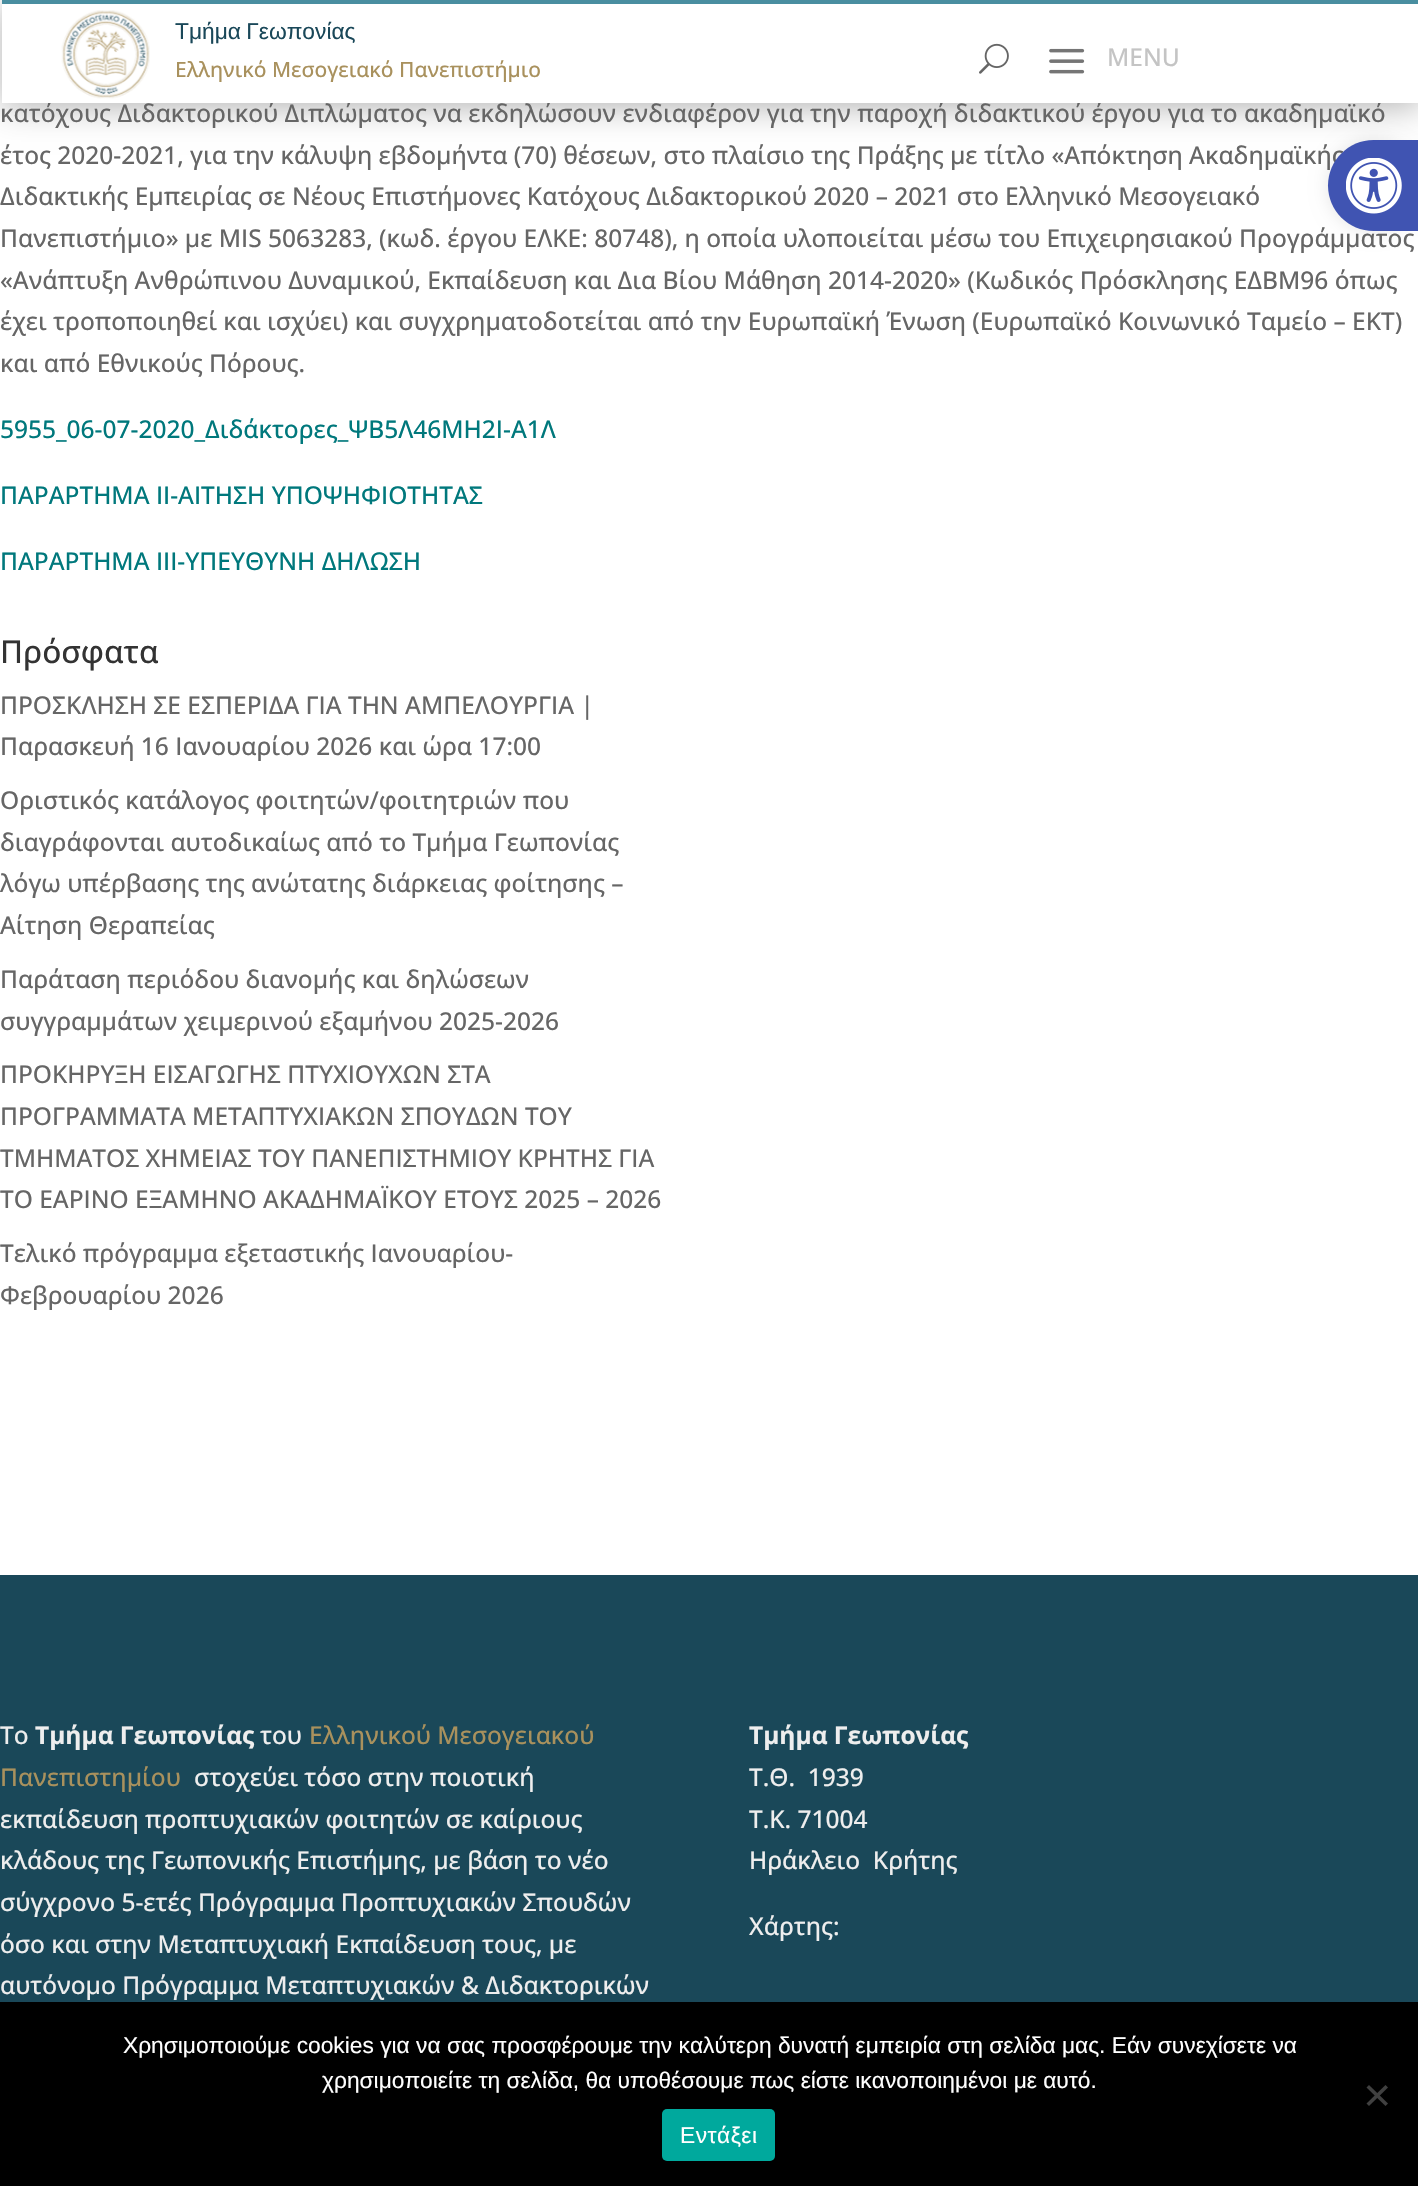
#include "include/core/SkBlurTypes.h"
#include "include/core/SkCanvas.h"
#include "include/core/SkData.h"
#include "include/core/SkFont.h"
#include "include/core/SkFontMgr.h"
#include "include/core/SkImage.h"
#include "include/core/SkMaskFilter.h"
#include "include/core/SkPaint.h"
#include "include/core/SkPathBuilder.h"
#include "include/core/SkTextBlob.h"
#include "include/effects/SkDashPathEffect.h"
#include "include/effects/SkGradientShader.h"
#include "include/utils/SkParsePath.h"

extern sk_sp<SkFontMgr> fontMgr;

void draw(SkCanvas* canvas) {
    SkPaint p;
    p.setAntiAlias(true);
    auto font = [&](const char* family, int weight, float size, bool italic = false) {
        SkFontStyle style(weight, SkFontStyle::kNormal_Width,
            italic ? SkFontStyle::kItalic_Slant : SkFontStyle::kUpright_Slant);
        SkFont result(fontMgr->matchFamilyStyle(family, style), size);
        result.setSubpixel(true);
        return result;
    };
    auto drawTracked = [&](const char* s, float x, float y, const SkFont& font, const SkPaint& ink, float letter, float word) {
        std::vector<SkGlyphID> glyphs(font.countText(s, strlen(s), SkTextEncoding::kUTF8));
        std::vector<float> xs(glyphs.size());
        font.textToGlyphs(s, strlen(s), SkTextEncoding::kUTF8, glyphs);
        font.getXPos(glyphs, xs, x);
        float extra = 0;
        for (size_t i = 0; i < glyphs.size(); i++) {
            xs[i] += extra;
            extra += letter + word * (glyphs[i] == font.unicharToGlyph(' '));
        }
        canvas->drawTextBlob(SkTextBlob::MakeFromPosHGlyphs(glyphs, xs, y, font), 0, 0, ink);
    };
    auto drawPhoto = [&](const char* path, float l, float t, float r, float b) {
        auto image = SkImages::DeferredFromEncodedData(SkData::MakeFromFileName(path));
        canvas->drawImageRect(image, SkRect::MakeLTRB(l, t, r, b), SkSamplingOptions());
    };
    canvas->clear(0xFFFFFFFF);
    canvas->save();
    canvas->clipPath(SkPathBuilder(SkPathFillType::kEvenOdd).moveTo(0, 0).lineTo(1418, 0).lineTo(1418, 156).lineTo(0, 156).close().moveTo(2, 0).lineTo(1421, 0).lineTo(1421, 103).lineTo(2, 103).close().detach(), true);
    p.setColor(0x4D000000);
    p.setMaskFilter(SkMaskFilter::MakeBlur(kNormal_SkBlurStyle, 16));
    canvas->drawRect(SkRect::MakeLTRB(2, 4, 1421, 107), p);
    p.setMaskFilter(nullptr);
    canvas->restore();
    auto font1 = font("Open Sans", 500, 24.5f);
    p.setColor(0xFF666666);
    canvas->drawString("κατόχους Διδακτορικού Διπλώματος να εκδηλώσουν ενδιαφέρον για την παροχή διδακτικού έργου για το ακαδημαϊκό", 0, 122, font1, p);
    p.setColor(0xFFFFFFFF);
    canvas->drawRect(SkRect::MakeLTRB(48, 102, 1381, 103), p);
    p.setColor(0xFF498EA0);
    canvas->drawRect(SkRect::MakeLTRB(2, 0, 1418, 4), p);
    drawPhoto("media/1.png", 61, 10, 150, 99);
    auto font2 = font("Liberation Sans", 400, 22.75f);
    p.setColor(0xFF1A4859);
    drawTracked("Τμήμα Γεωπονίας", 175, 39, font2, p, 0, -1);
    auto font3 = font("Open Sans", 500, 21);
    p.setColor(0xFFA9915D);
    canvas->drawString("Ελληνικό Μεσογειακό Πανεπιστήμιο", 175, 77, font3, p);
    drawPhoto("media/2.png", 979, 43, 1009, 74);
    drawPhoto("media/3.png", 1049, 48, 1085, 74);
    p.setColor(0xFFC4C4C4);
    canvas->drawString("MENU", 1107, 66, font1, p);
    p.setColor(0xFF666666);
    {
        const struct { const char* s; float x, y; } items[] = {
            {"έτος 2020-2021, για την κάλυψη εβδομήντα (70) θέσεων, στο πλαίσιο της Πράξης με τίτλο «Απόκτηση Ακαδημαϊκής", 0, 164},
            {"Διδακτικής Εμπειρίας σε Νέους Επιστήμονες Κατόχους Διδακτορικού 2020 – 2021 στο Ελληνικό Μεσογειακό", 0, 205},
            {"Πανεπιστήμιο» με ΜΙS 5063283, (κωδ. έργου ΕΛΚΕ: 80748), η οποία υλοποιείται μέσω του Επιχειρησιακού Προγράμματος", 0, 247},
            {"«Ανάπτυξη Ανθρώπινου Δυναμικού, Εκπαίδευση και Δια Βίου Μάθηση 2014-2020» (Κωδικός Πρόσκλησης ΕΔΒΜ96 όπως", 0, 289},
            {"έχει τροποποιηθεί και ισχύει) και συγχρηματοδοτείται από την Ευρωπαϊκή Ένωση (Ευρωπαϊκό Κοινωνικό Ταμείο – ΕΚΤ)", 0, 330},
            {"και από Εθνικούς Πόρους.", 0, 372},
        };
        for (auto [s, x, y] : items) {
            canvas->drawString(s, x, y, font1, p);
        }
    }
    p.setColor(0xFF00787C);
    {
        const struct { const char* s; float x, y; } items[] = {
            {"5955_06-07-2020_Διδάκτορες_ΨΒ5Λ46ΜΗ2Ι-Α1Λ", 0, 438},
            {"ΠΑΡΑΡΤΗΜΑ II-ΑΙΤΗΣΗ ΥΠΟΨΗΦΙΟΤΗΤΑΣ", 0, 504},
            {"ΠΑΡΑΡΤΗΜΑ III-ΥΠΕΥΘΥΝΗ ΔΗΛΩΣΗ", 0, 570},
        };
        for (auto [s, x, y] : items) {
            canvas->drawString(s, x, y, font1, p);
        }
    }
    auto font4 = font("Open Sans", 500, 31.5f);
    p.setColor(0xFF333333);
    canvas->drawString("Πρόσφατα", 0, 663, font4, p);
    p.setColor(0xFF666666);
    {
        const struct { const char* s; float x, y; } items[] = {
            {"ΠΡΟΣΚΛΗΣΗ ΣΕ ΕΣΠΕΡΙΔΑ ΓΙΑ ΤΗΝ ΑΜΠΕΛΟΥΡΓΙΑ |", 0, 714},
            {"Παρασκευή 16 Ιανουαρίου 2026 και ώρα 17:00", 0, 755},
            {"Οριστικός κατάλογος φοιτητών/φοιτητριών που", 0, 809},
            {"διαγράφονται αυτοδικαίως από το Τμήμα Γεωπονίας", 0, 851},
            {"λόγω υπέρβασης της ανώτατης διάρκειας φοίτησης –", 0, 892},
            {"Αίτηση Θεραπείας", 0, 934},
            {"Παράταση περιόδου διανομής και δηλώσεων", 0, 988},
            {"συγγραμμάτων χειμερινού εξαμήνου 2025-2026", 0, 1030},
            {"ΠΡΟΚΗΡΥΞΗ ΕΙΣΑΓΩΓΗΣ ΠΤΥΧΙΟΥΧΩΝ ΣΤΑ", 0, 1083},
            {"ΠΡΟΓΡΑΜΜAΤΑ ΜΕΤΑΠΤΥΧΙΑΚΩΝ ΣΠΟΥΔΩΝ ΤΟΥ", 0, 1125},
            {"ΤΜΗΜΑΤΟΣ ΧΗΜΕΙΑΣ ΤΟΥ ΠΑΝΕΠΙΣΤΗΜΙΟΥ ΚΡΗΤΗΣ ΓΙΑ", 0, 1167},
            {"ΤΟ ΕΑΡΙΝΟ ΕΞΑΜΗΝΟ ΑΚΑΔΗΜΑΪΚΟΥ ΕΤΟΥΣ 2025 – 2026", 0, 1208},
            {"Τελικό πρόγραμμα εξεταστικής Ιανουαρίου-", 0, 1262},
            {"Φεβρουαρίου 2026", 0, 1304},
        };
        for (auto [s, x, y] : items) {
            canvas->drawString(s, x, y, font1, p);
        }
    }
    p.setColor(0xFF1A4859);
    canvas->drawRect(SkRect::MakeLTRB(0, 1575, 1418, 2002), p);
    p.setColor(0xFFEEEEEE);
    canvas->drawString("Το", 0, 1744, font1, p);
    auto font5 = font("Open Sans", 700, 24.5f);
    canvas->drawString("Τμήμα Γεωπονίας", 35, 1744, font5, p);
    canvas->drawString("του", 260, 1744, font1, p);
    p.setColor(0xFFA9915D);
    canvas->drawString("Ελληνικού Μεσογειακού", 309, 1744, font1, p);
    canvas->drawString("Πανεπιστημίου", 0, 1786, font1, p);
    p.setColor(0xFFEEEEEE);
    {
        const struct { const char* s; float x, y; } items[] = {
            {"στοχεύει τόσο στην ποιοτική", 194, 1786},
            {"εκπαίδευση προπτυχιακών φοιτητών σε καίριους", 0, 1828},
            {"κλάδους της Γεωπονικής Επιστήμης, με βάση το νέο", 0, 1869},
            {"σύγχρονο 5-ετές Πρόγραμμα Προπτυχιακών Σπουδών", 0, 1911},
            {"όσο και στην Μεταπτυχιακή Εκπαίδευση τους, με", 0, 1953},
            {"αυτόνομο Πρόγραμμα Μεταπτυχιακών & Διδακτορικών", 0, 1994},
        };
        for (auto [s, x, y] : items) {
            canvas->drawString(s, x, y, font1, p);
        }
    }
    canvas->drawString("Τμήμα Γεωπονίας", 749, 1744, font5, p);
    {
        const struct { const char* s; float x, y; } items[] = {
            {"Τ.Θ.  1939", 749, 1786},
            {"Τ.Κ. 71004", 749, 1828},
            {"Ηράκλειο  Κρήτης", 749, 1869},
            {"Χάρτης:", 749, 1935},
        };
        for (auto [s, x, y] : items) {
            canvas->drawString(s, x, y, font1, p);
        }
    }
    p.setColor(0x1A000000);
    p.setMaskFilter(SkMaskFilter::MakeBlur(kNormal_SkBlurStyle, 9));
    canvas->drawRoundRect(SkRect::MakeLTRB(1328, 140, 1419, 231), 45.5f, 45.5f, p);
    p.setMaskFilter(nullptr);
    p.setColor(0xFF4054B2);
    canvas->drawPath(SkPathBuilder().moveTo(1373.5f, 140).lineTo(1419, 140).lineTo(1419, 231).lineTo(1373.5f, 231).cubicTo(1348.5f, 231, 1328, 210.5f, 1328, 185.5f).cubicTo(1328, 160.5f, 1348.5f, 140, 1373.5f, 140).close().detach(), p);
    drawPhoto("media/4.png", 1346, 158, 1402, 214);
    p.setColor(0xFF000000);
    canvas->drawRect(SkRect::MakeLTRB(0, 2002, 1418, 2186), p);
    p.setColor(0xFFFFFFFF);
    canvas->drawString("Χρησιμοποιούμε cookies για να σας προσφέρουμε την καλύτερη δυνατή εμπειρία στη σελίδα μας. Εάν συνεχίσετε να", 123, 2053, font2, p);
    canvas->drawString("χρησιμοποιείτε τη σελίδα, θα υποθέσουμε πως είστε ικανοποιημένοι με αυτό.", 322, 2088, font2, p);
    p.setColor(0xFF404040);
    canvas->drawPath(SkPathBuilder().moveTo(1385.5f, 2085).lineTo(1388, 2087.5f).lineTo(1369, 2106).lineTo(1366.5f, 2103.5f).close().detach(), p);
    canvas->drawPath(SkPathBuilder().moveTo(1366.5f, 2087.5f).lineTo(1369, 2085).lineTo(1388, 2103.5f).lineTo(1385.5f, 2106).close().detach(), p);
    p.setColor(0xFF00A99D);
    canvas->drawRoundRect(SkRect::MakeLTRB(662, 2109, 775, 2161), 5, 5, p);
    p.setColor(0xFFFFFFFF);
    drawTracked("Εντάξει", 680, 2143, font2, p, 0.5f, 0);
}
